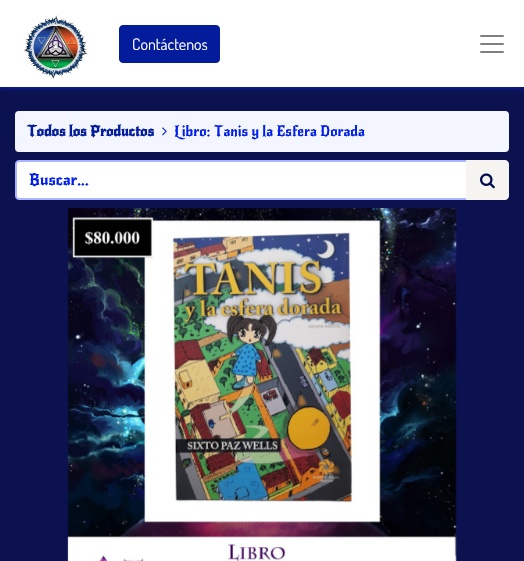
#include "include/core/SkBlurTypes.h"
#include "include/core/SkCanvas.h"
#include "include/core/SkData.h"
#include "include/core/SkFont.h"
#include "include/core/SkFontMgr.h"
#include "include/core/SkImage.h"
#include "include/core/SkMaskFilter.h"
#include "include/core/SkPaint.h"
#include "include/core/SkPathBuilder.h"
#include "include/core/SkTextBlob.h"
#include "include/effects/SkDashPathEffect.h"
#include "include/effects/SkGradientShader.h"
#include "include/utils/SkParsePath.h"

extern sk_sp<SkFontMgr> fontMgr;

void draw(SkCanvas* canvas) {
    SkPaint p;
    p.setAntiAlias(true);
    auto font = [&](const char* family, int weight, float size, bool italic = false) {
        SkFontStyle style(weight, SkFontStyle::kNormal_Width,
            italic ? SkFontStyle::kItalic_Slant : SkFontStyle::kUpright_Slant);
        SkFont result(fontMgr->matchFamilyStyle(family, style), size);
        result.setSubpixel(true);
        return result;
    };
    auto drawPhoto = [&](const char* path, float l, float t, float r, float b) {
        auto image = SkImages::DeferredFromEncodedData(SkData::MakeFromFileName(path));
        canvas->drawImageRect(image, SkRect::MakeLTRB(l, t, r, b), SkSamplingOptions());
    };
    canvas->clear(0xFF0C1150);
    p.setColor(0xFF032AE8);
    p.setMaskFilter(SkMaskFilter::MakeBlur(kNormal_SkBlurStyle, 2.5f));
    canvas->drawRect(SkRect::MakeLTRB(0, 0, 524, 87), p);
    p.setMaskFilter(nullptr);
    p.setColor(0xFFFFFFFF);
    canvas->drawRect(SkRect::MakeLTRB(0, 0, 524, 87), p);
    drawPhoto("media/1.png", 24, 15, 88, 79);
    p.setColor(0xFF021C9C);
    canvas->drawRoundRect(SkRect::MakeLTRB(119.5f, 25.5f, 219.5f, 62.5f), 3.5f, 3.5f, p);
    p.setStyle(SkPaint::kStroke_Style);
    p.setStrokeWidth(1);
    canvas->drawRoundRect(SkRect::MakeLTRB(119.5f, 25.5f, 219.5f, 62.5f), 3.5f, 3.5f, p);
    auto font1 = font("Dosis", 400, 16);
    p.setStyle(SkPaint::kFill_Style);
    p.setColor(0xFFFFFFFF);
    canvas->drawString("Contáctenos", 132, 50, font1, p);
    drawPhoto("media/2.png", 480, 35, 504, 53);
    p.setColor(0xFFF3F5FF);
    canvas->drawRoundRect(SkRect::MakeLTRB(15, 111, 509, 152), 4, 4, p);
    auto font2 = font("New Rocker", 700, 14.4f);
    p.setColor(0xFF021C9C);
    canvas->drawString("Todos los Productos", 27, 136, font2, p);
    drawPhoto("media/3.png", 162, 127, 167, 136);
    auto font3 = font("New Rocker", 400, 14.4f);
    p.setColor(0xFF001FE9);
    canvas->drawString("Libro: Tanis y la Esfera Dorada", 174, 136, font3, p);
    p.setColor(0xFFFFFFFF);
    canvas->drawPath(SkPathBuilder().moveTo(19, 161).lineTo(467, 161).lineTo(467, 199).lineTo(19, 199).cubicTo(17.5f, 199, 16, 197.5f, 16, 196).lineTo(16, 164).cubicTo(16, 162.5f, 17.5f, 161, 19, 161).close().detach(), p);
    p.setStyle(SkPaint::kStroke_Style);
    p.setStrokeWidth(2);
    p.setColor(0xFFA9B4FF);
    canvas->drawPath(SkPathBuilder().moveTo(19, 161).lineTo(467, 161).lineTo(467, 199).lineTo(19, 199).cubicTo(17.5f, 199, 16, 197.5f, 16, 196).lineTo(16, 164).cubicTo(16, 162.5f, 17.5f, 161, 19, 161).close().detach(), p);
    auto font4 = font("New Rocker", 400, 16);
    p.setStyle(SkPaint::kFill_Style);
    p.setColor(0xFF001FE9);
    canvas->drawString("Buscar...", 29, 185, font4, p);
    p.setColor(0xFFF5F4F0);
    canvas->drawPath(SkPathBuilder().moveTo(467, 161).lineTo(505, 161).cubicTo(506.5f, 161, 508, 162.5f, 508, 164).lineTo(508, 196).cubicTo(508, 197.5f, 506.5f, 199, 505, 199).lineTo(467, 199).close().detach(), p);
    p.setStyle(SkPaint::kStroke_Style);
    canvas->drawPath(SkPathBuilder().moveTo(467, 161).lineTo(505, 161).cubicTo(506.5f, 161, 508, 162.5f, 508, 164).lineTo(508, 196).cubicTo(508, 197.5f, 506.5f, 199, 505, 199).lineTo(467, 199).close().detach(), p);
    drawPhoto("media/4.png", 480, 173, 495, 189);
    drawPhoto("media/5.png", 67, 208, 457, 561);
}
